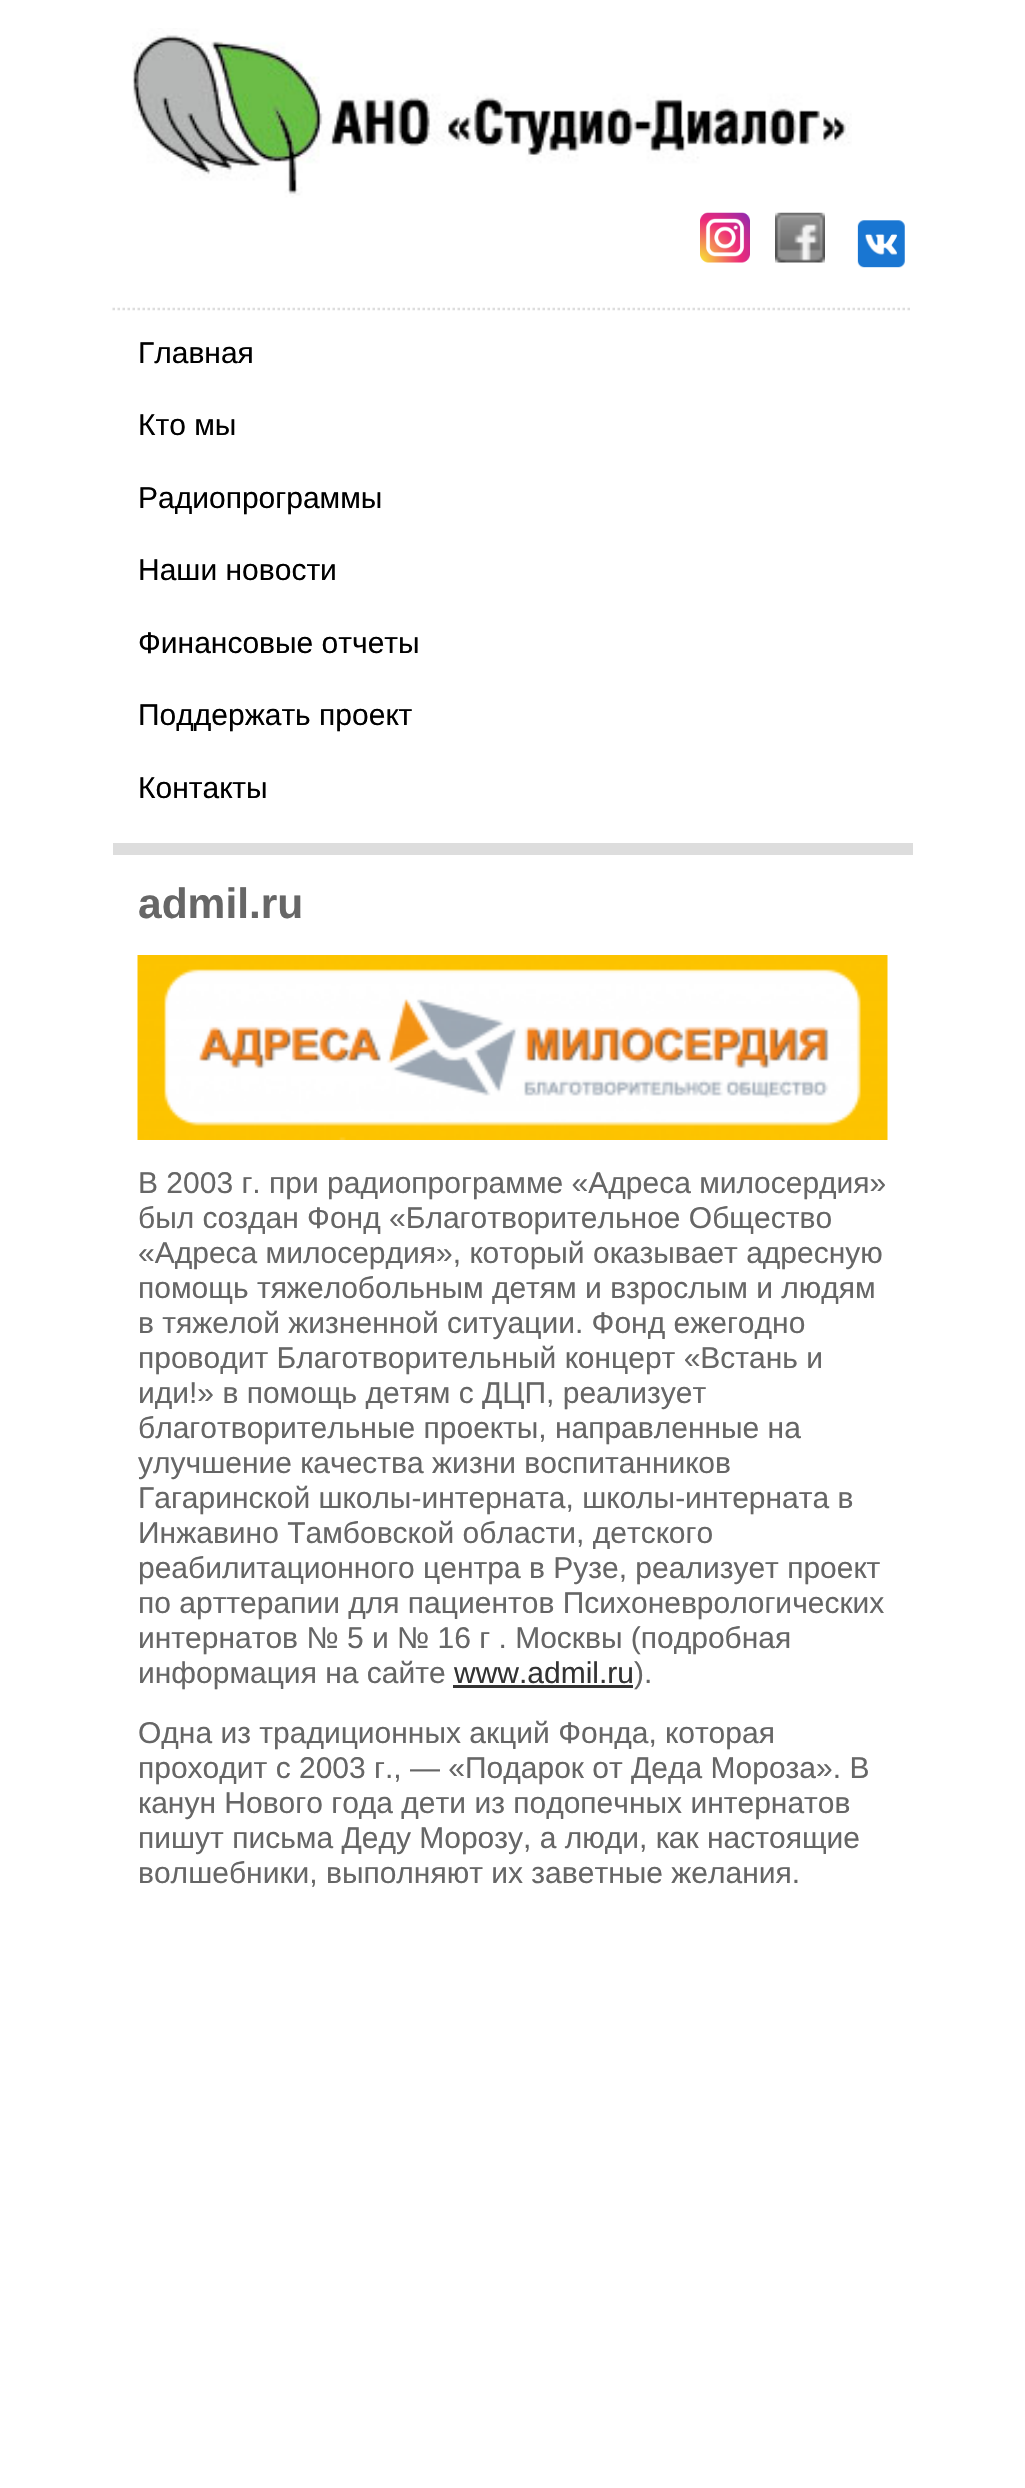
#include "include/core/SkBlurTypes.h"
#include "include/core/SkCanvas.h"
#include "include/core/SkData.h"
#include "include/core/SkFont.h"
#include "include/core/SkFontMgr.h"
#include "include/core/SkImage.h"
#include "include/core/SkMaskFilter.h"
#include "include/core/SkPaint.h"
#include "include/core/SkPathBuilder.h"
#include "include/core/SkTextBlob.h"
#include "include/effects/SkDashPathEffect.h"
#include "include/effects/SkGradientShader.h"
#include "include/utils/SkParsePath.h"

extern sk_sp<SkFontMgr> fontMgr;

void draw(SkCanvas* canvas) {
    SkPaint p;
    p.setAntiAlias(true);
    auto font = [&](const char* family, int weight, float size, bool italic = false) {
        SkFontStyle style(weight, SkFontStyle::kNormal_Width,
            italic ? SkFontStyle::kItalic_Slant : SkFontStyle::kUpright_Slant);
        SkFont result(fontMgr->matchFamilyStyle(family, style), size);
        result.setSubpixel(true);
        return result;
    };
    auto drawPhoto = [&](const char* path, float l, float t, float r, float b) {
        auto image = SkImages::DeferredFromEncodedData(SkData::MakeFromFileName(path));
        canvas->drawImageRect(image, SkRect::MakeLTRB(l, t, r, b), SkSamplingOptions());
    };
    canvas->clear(0xFFFFFFFF);
    drawPhoto("media/2.png", 700, 212, 750, 263);
    drawPhoto("media/3.png", 775, 212, 825, 263);
    drawPhoto("media/1.png", 132, 28, 852, 213);
    drawPhoto("media/4.png", 857, 220, 905, 268);
    p.setStyle(SkPaint::kStroke_Style);
    p.setStrokeWidth(2.5f);
    p.setColor(0xFFDDDDDD);
    p.setPathEffect(SkDashPathEffect::Make({{2.5f, 2.5f}}, 0));
    canvas->drawPath(SkPathBuilder().moveTo(112.5f, 309).lineTo(912.5f, 309).detach(), p);
    p.setPathEffect(nullptr);
    p.setStyle(SkPaint::kFill_Style);
    canvas->drawRect(SkRect::MakeLTRB(113, 843, 913, 855), p);
    auto font1 = font("Liberation Sans", 400, 30);
    p.setColor(0xFF000000);
    {
        const struct { const char* s; float x, y; } items[] = {
            {"Главная", 138, 363},
            {"Кто мы", 138, 435},
            {"Радиопрограммы", 138, 508},
            {"Наши новости", 138, 580},
            {"Финансовые отчеты", 138, 653},
            {"Поддержать проект", 138, 725},
            {"Контакты", 138, 798},
        };
        for (auto [s, x, y] : items) {
            canvas->drawString(s, x, y, font1, p);
        }
    }
    auto font2 = font("Liberation Sans", 700, 42.5f);
    p.setColor(0xFF666666);
    canvas->drawString("admil.ru", 138, 918, font2, p);
    drawPhoto("media/5.png", 137, 955, 888, 1140);
    {
        const struct { const char* s; float x, y; } items[] = {
            {"В 2003 г. при радиопрограмме «Адреса милосердия»", 138, 1193},
            {"был создан Фонд «Благотворительное Общество", 138, 1228},
            {"«Адреса милосердия», который оказывает адресную", 138, 1263},
            {"помощь тяжелобольным детям и взрослым и людям", 138, 1298},
            {"в тяжелой жизненной ситуации. Фонд ежегодно", 138, 1333},
            {"проводит Благотворительный концерт «Встань и", 138, 1368},
            {"иди!» в помощь детям с ДЦП, реализует", 138, 1403},
            {"благотворительные проекты, направленные на", 138, 1438},
            {"улучшение качества жизни воспитанников", 138, 1473},
            {"Гагаринской школы-интерната, школы-интерната в", 138, 1508},
            {"Инжавино Тамбовской области, детского", 138, 1543},
            {"реабилитационного центра в Рузе, реализует проект", 138, 1578},
            {"по арттерапии для пациентов Психоневрологических", 138, 1613},
            {"интернатов № 5 и № 16 г . Москвы (подробная", 138, 1648},
            {"информация на сайте", 138, 1683},
        };
        for (auto [s, x, y] : items) {
            canvas->drawString(s, x, y, font1, p);
        }
    }
    p.setColor(0xFF333333);
    canvas->drawString("www.admil.ru", 454, 1683, font1, p);
    canvas->drawRect(SkRect::MakeLTRB(453, 1685, 633, 1688), p);
    p.setColor(0xFF666666);
    {
        const struct { const char* s; float x, y; } items[] = {
            {").", 634, 1683},
            {"Одна из традиционных акций Фонда, которая", 138, 1743},
            {"проходит с 2003 г., — «Подарок от Деда Мороза». В", 138, 1778},
            {"канун Нового года дети из подопечных интернатов", 138, 1813},
            {"пишут письма Деду Морозу, а люди, как настоящие", 138, 1848},
            {"волшебники, выполняют их заветные желания.", 138, 1883},
        };
        for (auto [s, x, y] : items) {
            canvas->drawString(s, x, y, font1, p);
        }
    }
}
